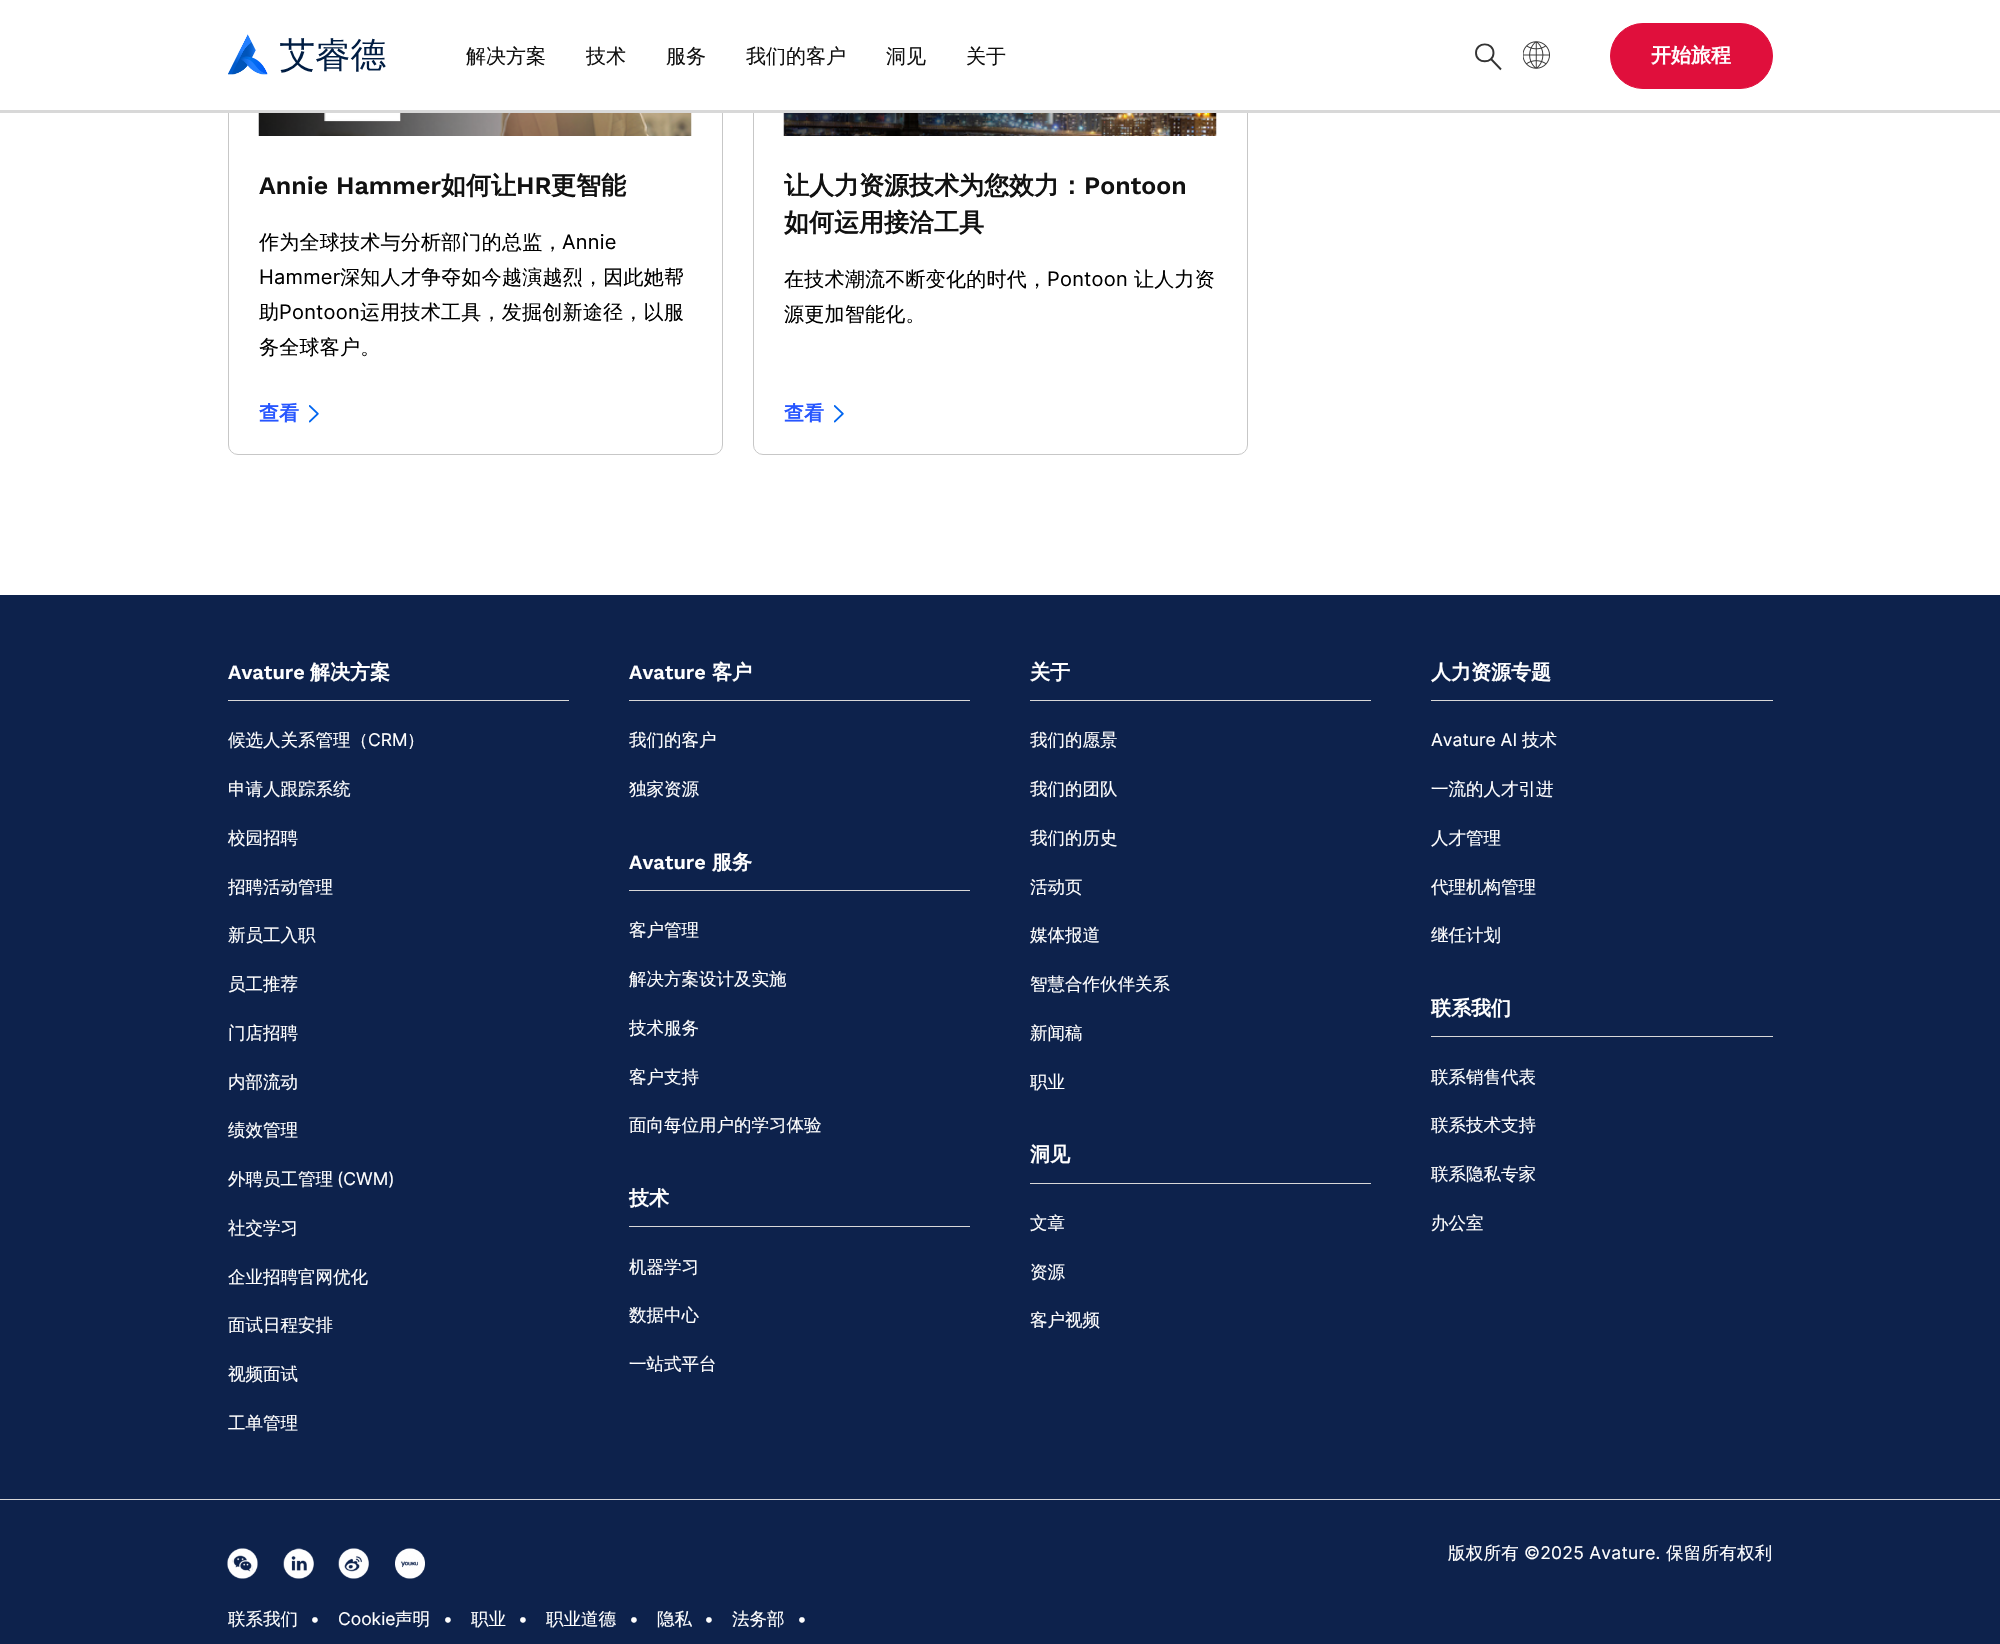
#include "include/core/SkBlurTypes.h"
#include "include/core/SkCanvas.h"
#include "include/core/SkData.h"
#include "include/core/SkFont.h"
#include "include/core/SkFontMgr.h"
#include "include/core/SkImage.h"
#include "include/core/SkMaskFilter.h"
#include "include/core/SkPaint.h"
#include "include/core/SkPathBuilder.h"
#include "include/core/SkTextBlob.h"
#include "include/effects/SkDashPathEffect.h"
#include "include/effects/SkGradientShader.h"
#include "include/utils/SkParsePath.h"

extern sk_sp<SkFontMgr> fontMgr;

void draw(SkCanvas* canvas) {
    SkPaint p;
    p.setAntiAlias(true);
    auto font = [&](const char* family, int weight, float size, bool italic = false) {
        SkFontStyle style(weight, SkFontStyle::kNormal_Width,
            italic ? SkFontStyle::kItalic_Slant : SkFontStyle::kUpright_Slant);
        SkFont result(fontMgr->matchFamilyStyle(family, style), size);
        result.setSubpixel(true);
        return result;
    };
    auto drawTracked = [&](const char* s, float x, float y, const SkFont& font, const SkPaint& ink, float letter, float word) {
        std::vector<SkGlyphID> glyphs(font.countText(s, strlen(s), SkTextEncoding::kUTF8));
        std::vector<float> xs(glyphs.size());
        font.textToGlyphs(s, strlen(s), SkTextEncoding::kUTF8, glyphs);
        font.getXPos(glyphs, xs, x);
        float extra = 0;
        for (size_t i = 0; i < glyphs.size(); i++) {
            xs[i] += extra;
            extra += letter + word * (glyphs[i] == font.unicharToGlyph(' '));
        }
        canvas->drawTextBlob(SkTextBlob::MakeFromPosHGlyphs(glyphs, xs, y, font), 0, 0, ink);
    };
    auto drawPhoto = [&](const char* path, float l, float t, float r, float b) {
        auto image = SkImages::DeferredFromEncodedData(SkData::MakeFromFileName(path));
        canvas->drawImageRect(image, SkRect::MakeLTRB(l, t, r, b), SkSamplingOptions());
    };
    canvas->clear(0xFFFFFFFF);
    p.setStyle(SkPaint::kStroke_Style);
    p.setStrokeWidth(1);
    p.setColor(0xFFC7C7C7);
    canvas->drawRoundRect(SkRect::MakeLTRB(228.5f, -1.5f, 722.5f, 454.5f), 9.5f, 9.5f, p);
    canvas->drawRoundRect(SkRect::MakeLTRB(753.5f, -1.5f, 1247.5f, 454.5f), 9.5f, 9.5f, p);
    p.setStyle(SkPaint::kFill_Style);
    p.setColor(0xFFFFFFFF);
    canvas->drawRect(SkRect::MakeLTRB(228, 0, 1248, 110), p);
    p.setColor(0xFFD8D8D8);
    canvas->drawRect(SkRect::MakeLTRB(0, 110, 2000, 113), p);
    drawPhoto("media/1.png", 228, 34, 386, 75);
    auto font1 = font("WenQuanYi Zen Hei", 500, 20);
    p.setColor(0xFF111111);
    {
        const struct { const char* s; float x, y; } items[] = {
            {"解决方案", 466, 63},
            {"技术", 586, 63},
            {"服务", 666, 63},
            {"我们的客户", 746, 63},
            {"洞见", 886, 63},
            {"关于", 966, 63},
        };
        for (auto [s, x, y] : items) {
            canvas->drawString(s, x, y, font1, p);
        }
    }
    p.setStyle(SkPaint::kStroke_Style);
    p.setStrokeWidth(1.9f);
    p.setColor(0xFF333333);
    canvas->drawPath(SkPathBuilder().moveTo(1493.5f, 53).cubicTo(1493.5f, 64, 1476, 64, 1476, 53).cubicTo(1476, 41.5f, 1493.5f, 41.5f, 1493.5f, 53).close().moveTo(1491, 59).lineTo(1501, 69.5f).detach(), p);
    drawPhoto("media/2.png", 1523, 41, 1550, 69);
    p.setStyle(SkPaint::kFill_Style);
    p.setColor(0xFFE00F3C);
    canvas->drawRoundRect(SkRect::MakeLTRB(1610.5f, 23.5f, 1772.5f, 88.5f), 32.5f, 32.5f, p);
    p.setStyle(SkPaint::kStroke_Style);
    p.setStrokeWidth(1);
    canvas->drawRoundRect(SkRect::MakeLTRB(1610.5f, 23.5f, 1772.5f, 88.5f), 32.5f, 32.5f, p);
    auto font2 = font("WenQuanYi Zen Hei", 700, 20);
    p.setStyle(SkPaint::kFill_Style);
    p.setColor(0xFFFFFFFF);
    canvas->drawString("开始旅程", 1651, 62, font2, p);
    drawPhoto("media/3.png", 258, 113, 692, 136);
    auto font3 = font("Work Sans", 600, 25);
    p.setColor(0xFF111111);
    canvas->drawString("Annie Hammer", 259, 194, font3, p);
    auto font4 = font("WenQuanYi Zen Hei", 700, 25);
    canvas->drawString("如何让", 441, 194, font4, p);
    canvas->drawString("HR", 516, 194, font3, p);
    canvas->drawString("更智能", 551, 194, font4, p);
    p.setColor(0xFF000000);
    drawTracked("作为全球技术与分析部门的总监，", 259, 249, font1, p, 0.25f, 0);
    auto font5 = font("Inter", 400, 20);
    drawTracked("Annie", 562, 249, font5, p, 0.25f, 0);
    drawTracked("Hammer", 259, 284, font5, p, 0.25f, 0);
    drawTracked("深知人才争夺如今越演越烈，因此她帮", 340, 284, font1, p, 0.25f, 0);
    drawTracked("助", 259, 319, font1, p, 0.25f, 0);
    drawTracked("Pontoon", 279, 319, font5, p, 0.25f, 0);
    drawTracked("运用技术工具，发掘创新途径，以服", 360, 319, font1, p, 0.25f, 0);
    drawTracked("务全球客户。", 259, 354, font1, p, 0.25f, 0);
    p.setColor(0xFF2756FF);
    canvas->drawString("查看", 259, 420, font2, p);
    drawPhoto("media/4.png", 309, 405, 319, 423);
    drawPhoto("media/5.png", 783, 113, 1217, 136);
    p.setColor(0xFF111111);
    canvas->drawString("让人力资源技术为您效力：", 784, 194, font4, p);
    canvas->drawString("Pontoon", 1084, 194, font3, p);
    canvas->drawString("如何运用接洽工具", 784, 231, font4, p);
    p.setColor(0xFF000000);
    drawTracked("在技术潮流不断变化的时代，", 784, 286, font1, p, 0.25f, 0);
    drawTracked("Pontoon", 1047, 286, font5, p, 0.25f, 0);
    drawTracked("让人力资", 1134, 286, font1, p, 0.25f, 0);
    drawTracked("源更加智能化。", 784, 321, font1, p, 0.25f, 0);
    p.setColor(0xFF2756FF);
    canvas->drawString("查看", 784, 420, font2, p);
    drawPhoto("media/4.png", 834, 405, 844, 423);
    {
        const struct { float l, t, r, b; SkColor color; } items[] = {
            {0, 595, 2000, 1644, 0xFF0D224C},
            {0, 1499, 2000, 1500, 0xFFD8D8D8},
            {228, 700, 569, 701, 0xFFD8D8D8},
        };
        for (auto [l, t, r, b, color] : items) {
            p.setColor(color);
            canvas->drawRect(SkRect::MakeLTRB(l, t, r, b), p);
        }
    }
    auto font6 = font("Work Sans", 600, 20);
    p.setColor(0xFFFFFFFF);
    canvas->drawString("Avature", 228, 679, font6, p);
    canvas->drawString("解决方案", 310, 679, font2, p);
    auto font7 = font("WenQuanYi Zen Hei", 500, 17.5f);
    canvas->drawString("候选人关系管理（", 228, 746, font7, p);
    auto font8 = font("Inter", 400, 17.5f);
    canvas->drawString("CRM", 368, 746, font8, p);
    {
        const struct { const char* s; float x, y; } items[] = {
            {"）", 407, 746},
            {"申请人跟踪系统", 228, 795},
            {"校园招聘", 228, 844},
            {"招聘活动管理", 228, 893},
            {"新员工入职", 228, 941},
            {"员工推荐", 228, 990},
            {"门店招聘", 228, 1039},
            {"内部流动", 228, 1088},
            {"绩效管理", 228, 1136},
            {"外聘员工管理", 228, 1185},
        };
        for (auto [s, x, y] : items) {
            canvas->drawString(s, x, y, font7, p);
        }
    }
    canvas->drawString("(CWM)", 337, 1185, font8, p);
    {
        const struct { const char* s; float x, y; } items[] = {
            {"社交学习", 228, 1234},
            {"企业招聘官网优化", 228, 1283},
            {"面试日程安排", 228, 1331},
            {"视频面试", 228, 1380},
            {"工单管理", 228, 1429},
        };
        for (auto [s, x, y] : items) {
            canvas->drawString(s, x, y, font7, p);
        }
    }
    p.setColor(0xFFD8D8D8);
    canvas->drawRect(SkRect::MakeLTRB(629, 700, 970, 701), p);
    p.setColor(0xFFFFFFFF);
    canvas->drawString("Avature", 629, 679, font6, p);
    canvas->drawString("客户", 712, 679, font2, p);
    canvas->drawString("我们的客户", 629, 746, font7, p);
    canvas->drawString("独家资源", 629, 795, font7, p);
    p.setColor(0xFFD8D8D8);
    canvas->drawRect(SkRect::MakeLTRB(629, 890, 970, 891), p);
    p.setColor(0xFFFFFFFF);
    canvas->drawString("Avature", 629, 869, font6, p);
    canvas->drawString("服务", 712, 869, font2, p);
    {
        const struct { const char* s; float x, y; } items[] = {
            {"客户管理", 629, 936},
            {"解决方案设计及实施", 629, 985},
            {"技术服务", 629, 1034},
            {"客户支持", 629, 1083},
            {"面向每位用户的学习体验", 629, 1131},
        };
        for (auto [s, x, y] : items) {
            canvas->drawString(s, x, y, font7, p);
        }
    }
    p.setColor(0xFFD8D8D8);
    canvas->drawRect(SkRect::MakeLTRB(629, 1226, 970, 1227), p);
    p.setColor(0xFFFFFFFF);
    canvas->drawString("技术", 629, 1205, font2, p);
    {
        const struct { const char* s; float x, y; } items[] = {
            {"机器学习", 629, 1273},
            {"数据中心", 629, 1321},
            {"一站式平台", 629, 1370},
        };
        for (auto [s, x, y] : items) {
            canvas->drawString(s, x, y, font7, p);
        }
    }
    p.setColor(0xFFD8D8D8);
    canvas->drawRect(SkRect::MakeLTRB(1030, 700, 1371, 701), p);
    p.setColor(0xFFFFFFFF);
    canvas->drawString("关于", 1030, 679, font2, p);
    {
        const struct { const char* s; float x, y; } items[] = {
            {"我们的愿景", 1030, 746},
            {"我们的团队", 1030, 795},
            {"我们的历史", 1030, 844},
            {"活动页", 1030, 893},
            {"媒体报道", 1030, 941},
            {"智慧合作伙伴关系", 1030, 990},
            {"新闻稿", 1030, 1039},
            {"职业", 1030, 1088},
        };
        for (auto [s, x, y] : items) {
            canvas->drawString(s, x, y, font7, p);
        }
    }
    p.setColor(0xFFD8D8D8);
    canvas->drawRect(SkRect::MakeLTRB(1030, 1183, 1371, 1184), p);
    p.setColor(0xFFFFFFFF);
    canvas->drawString("洞见", 1030, 1161, font2, p);
    {
        const struct { const char* s; float x, y; } items[] = {
            {"文章", 1030, 1229},
            {"资源", 1030, 1278},
            {"客户视频", 1030, 1326},
        };
        for (auto [s, x, y] : items) {
            canvas->drawString(s, x, y, font7, p);
        }
    }
    p.setColor(0xFFD8D8D8);
    canvas->drawRect(SkRect::MakeLTRB(1431, 700, 1773, 701), p);
    p.setColor(0xFFFFFFFF);
    canvas->drawString("人力资源专题", 1431, 679, font2, p);
    canvas->drawString("Avature AI", 1431, 746, font8, p);
    {
        const struct { const char* s; float x, y; } items[] = {
            {"技术", 1522, 746},
            {"一流的人才引进", 1431, 795},
            {"人才管理", 1431, 844},
            {"代理机构管理", 1431, 893},
            {"继任计划", 1431, 941},
        };
        for (auto [s, x, y] : items) {
            canvas->drawString(s, x, y, font7, p);
        }
    }
    p.setColor(0xFFD8D8D8);
    canvas->drawRect(SkRect::MakeLTRB(1431, 1036, 1773, 1037), p);
    p.setColor(0xFFFFFFFF);
    canvas->drawString("联系我们", 1431, 1015, font2, p);
    {
        const struct { const char* s; float x, y; } items[] = {
            {"联系销售代表", 1431, 1083},
            {"联系技术支持", 1431, 1131},
            {"联系隐私专家", 1431, 1180},
            {"办公室", 1431, 1229},
        };
        for (auto [s, x, y] : items) {
            canvas->drawString(s, x, y, font7, p);
        }
    }
    drawTracked("版权所有", 1448, 1559, font7, p, 0.25f, 0);
    drawTracked("©2025 Avature.", 1524, 1559, font8, p, 0.25f, 0);
    drawTracked("保留所有权利", 1666, 1559, font7, p, 0.25f, 0);
    drawPhoto("media/6.png", 227, 1548, 258, 1579);
    drawPhoto("media/7.png", 283, 1548, 314, 1579);
    drawPhoto("media/8.png", 338, 1548, 369, 1579);
    drawPhoto("media/9.png", 395, 1548, 425, 1579);
    canvas->drawString("联系我们", 228, 1625, font7, p);
    canvas->drawString("•", 310, 1625, font8, p);
    canvas->drawString("Cookie", 338, 1625, font8, p);
    canvas->drawString("声明", 395, 1625, font7, p);
    canvas->drawString("•", 443, 1625, font8, p);
    canvas->drawString("职业", 471, 1625, font7, p);
    canvas->drawString("•", 518, 1625, font8, p);
    canvas->drawString("职业道德", 546, 1625, font7, p);
    canvas->drawString("•", 629, 1625, font8, p);
    canvas->drawString("隐私", 657, 1625, font7, p);
    canvas->drawString("•", 704, 1625, font8, p);
    canvas->drawString("法务部", 732, 1625, font7, p);
    canvas->drawString("•", 797, 1625, font8, p);
}
